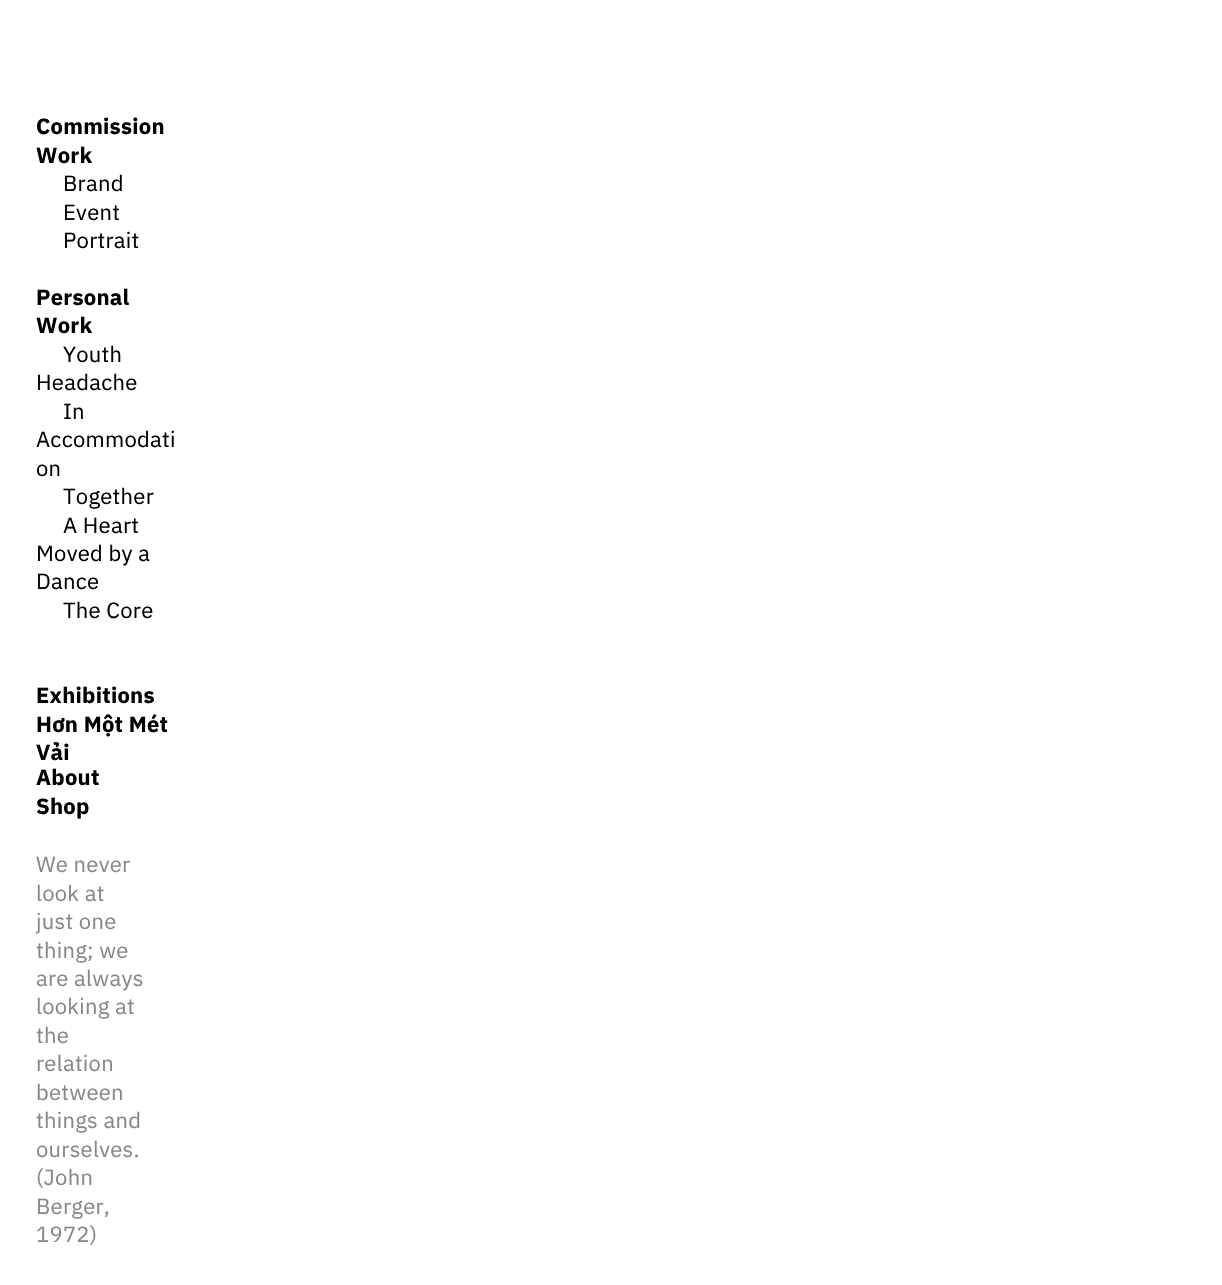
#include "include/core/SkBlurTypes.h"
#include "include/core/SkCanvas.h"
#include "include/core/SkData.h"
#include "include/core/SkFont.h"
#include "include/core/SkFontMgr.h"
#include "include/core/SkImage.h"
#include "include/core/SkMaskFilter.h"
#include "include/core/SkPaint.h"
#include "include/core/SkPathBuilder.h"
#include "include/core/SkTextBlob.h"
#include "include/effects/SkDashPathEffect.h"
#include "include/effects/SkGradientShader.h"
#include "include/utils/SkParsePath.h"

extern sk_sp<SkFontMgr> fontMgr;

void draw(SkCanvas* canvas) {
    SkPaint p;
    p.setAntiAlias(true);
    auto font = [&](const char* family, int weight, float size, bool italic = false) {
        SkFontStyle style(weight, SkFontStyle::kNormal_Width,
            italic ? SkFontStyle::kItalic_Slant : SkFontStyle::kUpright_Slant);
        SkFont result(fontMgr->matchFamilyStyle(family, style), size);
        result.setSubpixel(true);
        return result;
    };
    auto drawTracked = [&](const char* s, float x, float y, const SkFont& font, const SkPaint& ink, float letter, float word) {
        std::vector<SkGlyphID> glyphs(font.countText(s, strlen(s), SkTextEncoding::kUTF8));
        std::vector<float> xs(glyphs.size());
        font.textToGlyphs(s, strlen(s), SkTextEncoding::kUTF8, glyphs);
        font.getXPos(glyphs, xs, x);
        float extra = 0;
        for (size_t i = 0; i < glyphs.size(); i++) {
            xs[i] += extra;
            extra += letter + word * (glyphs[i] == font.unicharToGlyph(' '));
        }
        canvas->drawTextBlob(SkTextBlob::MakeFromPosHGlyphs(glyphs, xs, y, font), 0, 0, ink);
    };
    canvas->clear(0xFFFFFFFF);
    auto font1 = font("IBM Plex Sans", 700, 22);
    p.setColor(0xFF000000);
    drawTracked("Commission", 36, 134, font1, p, 0.25f, 0);
    drawTracked("Work", 36, 163, font1, p, 0.25f, 0);
    auto font2 = font("IBM Plex Sans", 400, 22);
    {
        const struct { const char* s; float x, y; } items[] = {
            {"Brand", 63, 191},
            {"Event", 63, 220},
            {"Portrait", 63, 248},
        };
        for (auto [s, x, y] : items) {
            drawTracked(s, x, y, font2, p, 0.25f, 0);
        }
    }
    drawTracked("Personal", 36, 305, font1, p, 0.25f, 0);
    drawTracked("Work", 36, 333, font1, p, 0.25f, 0);
    {
        const struct { const char* s; float x, y; } items[] = {
            {"Youth", 63, 362},
            {"Headache", 36, 390},
            {"In", 63, 419},
            {"Accommodati", 36, 447},
            {"on", 36, 476},
            {"Together", 63, 504},
            {"A Heart", 63, 533},
            {"Moved by a", 36, 561},
            {"Dance", 36, 589},
            {"The Core", 63, 618},
        };
        for (auto [s, x, y] : items) {
            drawTracked(s, x, y, font2, p, 0.25f, 0);
        }
    }
    {
        const struct { const char* s; float x, y; } items[] = {
            {"Exhibitions", 36, 703},
            {"Hơn Một Mét", 36, 732},
            {"Vải", 36, 760},
            {"About", 36, 785},
            {"Shop", 36, 814},
        };
        for (auto [s, x, y] : items) {
            drawTracked(s, x, y, font1, p, 0.25f, 0);
        }
    }
    p.setColor(0xFF878787);
    {
        const struct { const char* s; float x, y; } items[] = {
            {"We never", 36, 872},
            {"look at", 36, 901},
            {"just one", 36, 929},
            {"thing; we", 36, 958},
            {"are always", 36, 986},
            {"looking at", 36, 1014},
            {"the", 36, 1043},
            {"relation", 36, 1071},
            {"between", 36, 1100},
            {"things and", 36, 1128},
            {"ourselves.", 36, 1157},
            {"(John", 36, 1185},
            {"Berger,", 36, 1214},
            {"1972)", 36, 1242},
        };
        for (auto [s, x, y] : items) {
            drawTracked(s, x, y, font2, p, 0.25f, 0);
        }
    }
}
